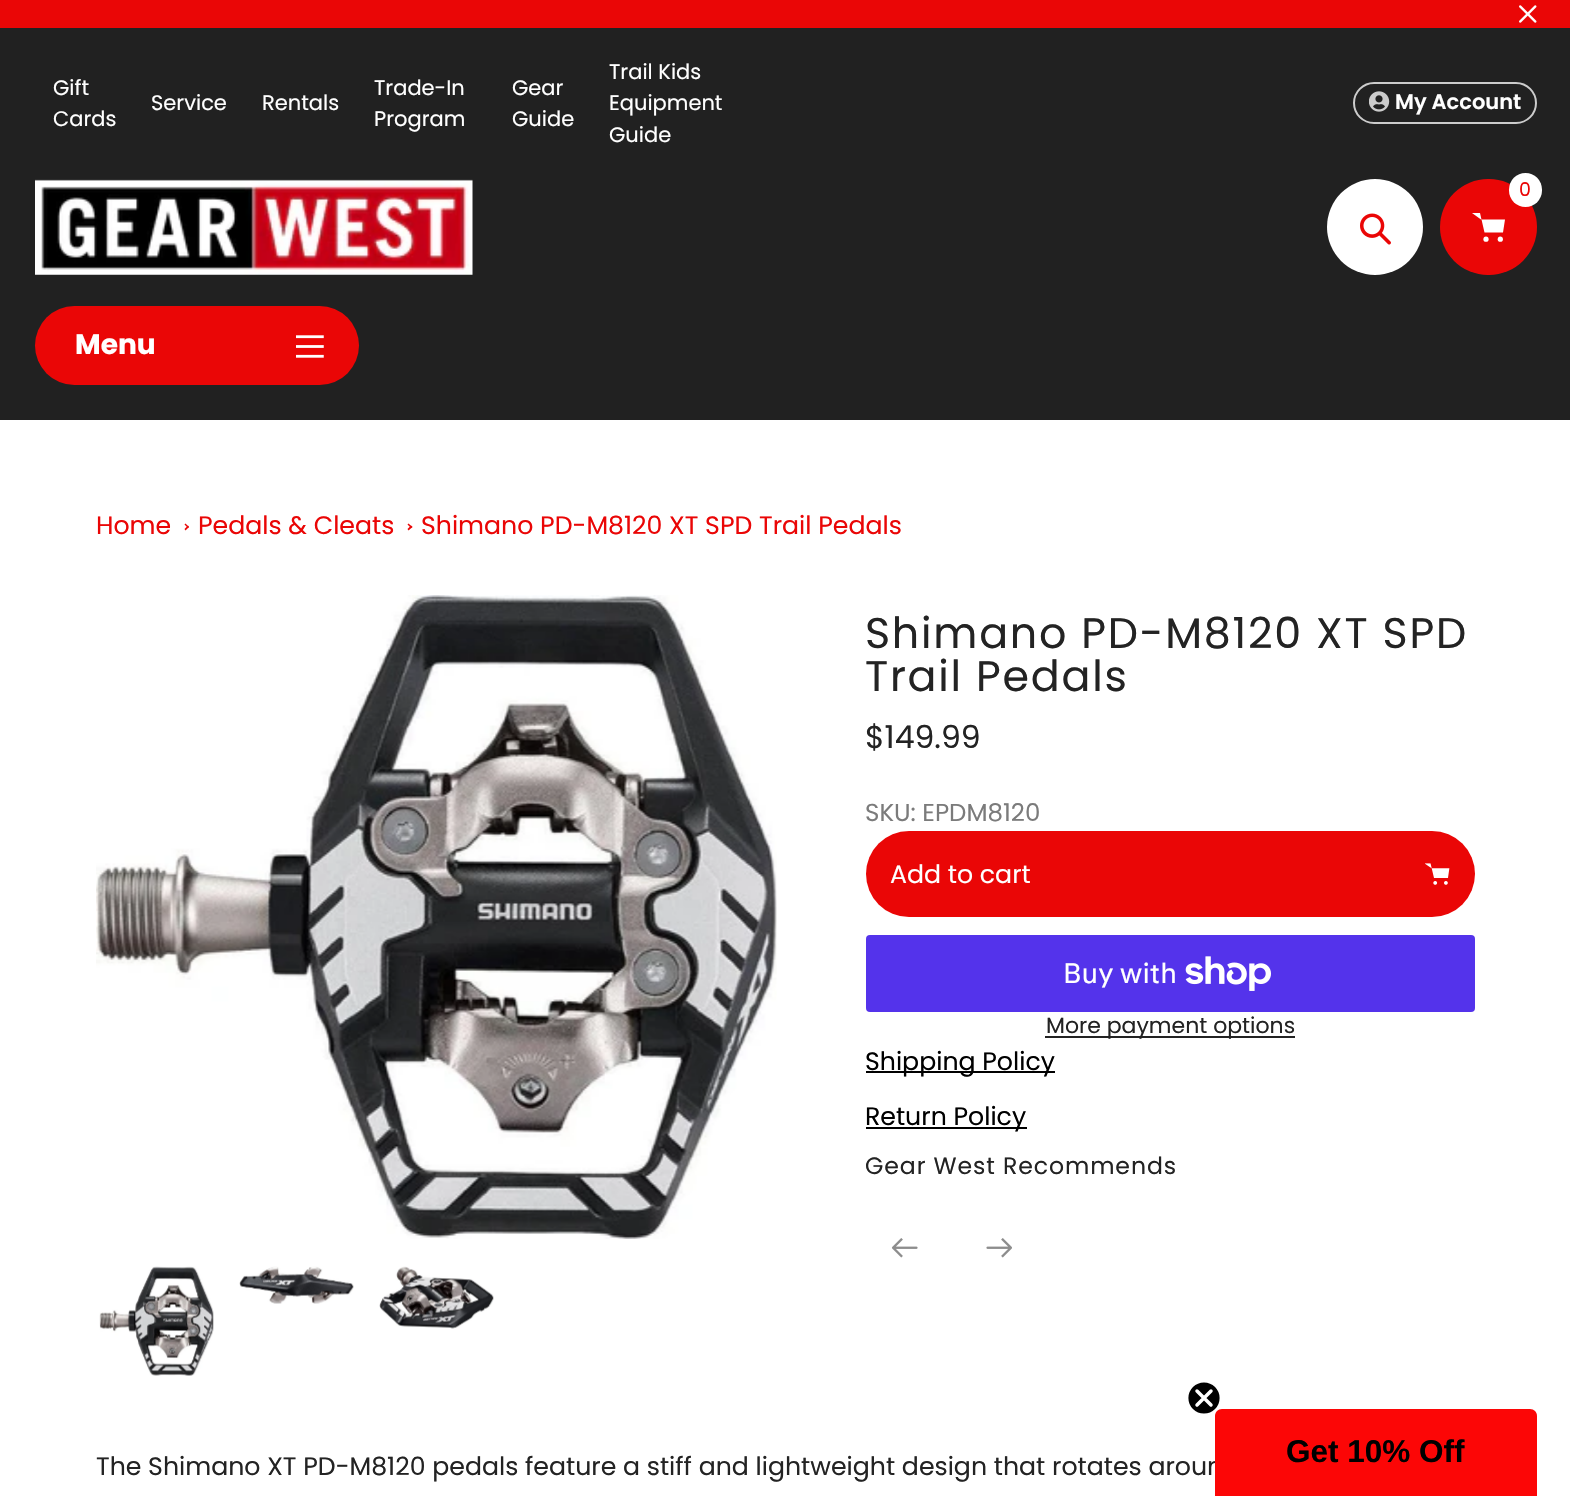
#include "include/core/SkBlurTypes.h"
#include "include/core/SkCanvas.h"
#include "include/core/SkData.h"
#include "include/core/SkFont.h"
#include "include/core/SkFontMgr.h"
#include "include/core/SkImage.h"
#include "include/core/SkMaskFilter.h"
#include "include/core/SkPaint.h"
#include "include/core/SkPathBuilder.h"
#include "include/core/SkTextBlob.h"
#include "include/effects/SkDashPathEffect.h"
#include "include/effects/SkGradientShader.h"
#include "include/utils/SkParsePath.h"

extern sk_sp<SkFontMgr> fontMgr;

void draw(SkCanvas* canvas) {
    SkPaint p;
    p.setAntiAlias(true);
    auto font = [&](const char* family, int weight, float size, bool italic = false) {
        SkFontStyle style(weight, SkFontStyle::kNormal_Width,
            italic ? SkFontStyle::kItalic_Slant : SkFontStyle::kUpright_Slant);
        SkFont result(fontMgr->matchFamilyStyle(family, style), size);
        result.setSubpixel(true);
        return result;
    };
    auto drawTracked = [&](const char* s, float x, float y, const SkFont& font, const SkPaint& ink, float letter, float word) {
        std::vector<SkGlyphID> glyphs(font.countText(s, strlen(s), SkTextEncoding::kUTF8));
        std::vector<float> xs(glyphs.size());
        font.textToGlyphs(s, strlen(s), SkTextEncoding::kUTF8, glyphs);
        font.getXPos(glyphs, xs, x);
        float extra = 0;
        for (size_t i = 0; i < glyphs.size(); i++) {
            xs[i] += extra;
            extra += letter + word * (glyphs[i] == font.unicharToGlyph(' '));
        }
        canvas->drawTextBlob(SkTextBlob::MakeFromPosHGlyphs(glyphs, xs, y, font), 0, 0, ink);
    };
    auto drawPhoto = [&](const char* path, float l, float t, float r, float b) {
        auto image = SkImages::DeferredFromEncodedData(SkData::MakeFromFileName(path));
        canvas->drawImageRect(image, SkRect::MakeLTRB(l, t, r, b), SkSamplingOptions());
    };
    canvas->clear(0xFFFFFFFF);
    p.setColor(0xFFEA0606);
    canvas->drawRect(SkRect::MakeLTRB(0, 0, 1570, 28), p);
    drawPhoto("media/1.png", 1519, 5, 1537, 23);
    p.setColor(0xFF212121);
    canvas->drawRect(SkRect::MakeLTRB(0, 28, 1570, 420), p);
    auto font1 = font("Poppins", 400, 21);
    p.setColor(0xFFFFFFFF);
    {
        const struct { const char* s; float x, y; } items[] = {
            {"Gift", 53, 95},
            {"Cards", 53, 126},
            {"Service", 151, 110},
            {"Rentals", 262, 110},
            {"Trade-In", 374, 95},
            {"Program", 374, 126},
            {"Gear", 512, 95},
            {"Guide", 512, 126},
            {"Trail Kids", 609, 79},
            {"Equipment", 609, 110},
            {"Guide", 609, 142},
        };
        for (auto [s, x, y] : items) {
            canvas->drawString(s, x, y, font1, p);
        }
    }
    p.setStyle(SkPaint::kStroke_Style);
    p.setStrokeWidth(2);
    p.setColor(0xFFCCCCCC);
    canvas->drawRoundRect(SkRect::MakeLTRB(1354, 83, 1536, 123), 20, 20, p);
    drawPhoto("media/2.png", 1369, 91, 1390, 112);
    auto font2 = font("Poppins", 600, 21);
    p.setStyle(SkPaint::kFill_Style);
    p.setColor(0xFFFFFFFF);
    canvas->drawString("My Account", 1395, 109, font2, p);
    drawPhoto("media/3.png", 35, 179, 473, 275);
    canvas->drawCircle(1375, 227, 48, p);
    drawPhoto("media/4.png", 1360, 213, 1391, 245);
    p.setColor(0xFFEA0606);
    canvas->drawRoundRect(SkRect::MakeLTRB(1440, 179, 1537, 275), 48, 48, p);
    p.setColor(0xFFFFFFFF);
    canvas->drawRoundRect(SkRect::MakeLTRB(1509, 173, 1542, 207), 16.5f, 16.5f, p);
    auto font3 = font("Poppins", 400, 19);
    p.setColor(0xFFEA0606);
    canvas->drawString("0", 1519, 196, font3, p);
    p.setColor(0xFFFFFFFF);
    canvas->drawCircle(1486, 239.2f, 2.6f, p);
    canvas->drawCircle(1500.3f, 239.2f, 2.6f, p);
    canvas->drawPath(SkPathBuilder(SkPathFillType::kEvenOdd).moveTo(1481, 219.5f).lineTo(1505, 219.5f).lineTo(1503, 232.5f).lineTo(1484.5f, 232.5f).lineTo(1480, 213).lineTo(1472, 213).detach(), p);
    p.setColor(0xFFEA0606);
    canvas->drawRoundRect(SkRect::MakeLTRB(35, 306, 359, 385), 39.5f, 39.5f, p);
    auto font4 = font("Poppins", 700, 28);
    p.setColor(0xFFFFFFFF);
    canvas->drawString("Menu", 75, 354, font4, p);
    drawPhoto("media/5.png", 296, 335, 324, 358);
    auto font5 = font("Poppins", 400, 25.2f);
    p.setColor(0xFFEA0606);
    canvas->drawString("Home", 96, 534, font5, p);
    canvas->drawPath(SkPathBuilder().moveTo(185.5f, 523.5f).lineTo(189, 527).lineTo(188, 528).lineTo(184.5f, 524.5f).close().detach(), p);
    canvas->drawPath(SkPathBuilder().moveTo(188, 525.5f).lineTo(189, 527).lineTo(185.5f, 530.5f).lineTo(184.5f, 529).close().detach(), p);
    canvas->drawString("Pedals & Cleats", 198, 534, font5, p);
    canvas->drawPath(SkPathBuilder().moveTo(408.5f, 523.5f).lineTo(412.5f, 527).lineTo(411, 528).lineTo(407.5f, 524.5f).close().detach(), p);
    canvas->drawPath(SkPathBuilder().moveTo(411, 525.5f).lineTo(412.5f, 527).lineTo(408.5f, 530.5f).lineTo(407.5f, 529).close().detach(), p);
    canvas->drawString("Shimano PD-M8120 XT SPD Trail Pedals", 421, 534, font5, p);
    drawPhoto("media/6.png", 96, 595, 777, 1239);
    drawPhoto("media/7.png", 99, 1266, 214, 1376);
    drawPhoto("media/8.png", 239, 1266, 354, 1304);
    drawPhoto("media/9.png", 379, 1266, 494, 1329);
    auto font6 = font("Poppins", 400, 42.8f);
    p.setColor(0xFF232323);
    drawTracked("Shimano PD-M8120 XT SPD", 865, 648, font6, p, 1.75f, 0);
    drawTracked("Trail Pedals", 865, 691, font6, p, 1.75f, 0);
    auto font7 = font("Poppins", 400, 31.5f);
    canvas->drawString("$149.99", 865, 748, font7, p);
    auto font8 = font("Poppins", 400, 24.5f);
    p.setColor(0xFF7B7B7B);
    canvas->drawString("SKU: EPDM8120", 865, 821, font8, p);
    p.setColor(0xFFEA0606);
    canvas->drawRoundRect(SkRect::MakeLTRB(866, 831, 1475, 917), 43, 43, p);
    p.setColor(0xFFFFFFFF);
    canvas->drawString("Add to cart", 890, 883, font5, p);
    drawPhoto("media/10.png", 1425, 863, 1450, 885);
    p.setColor(0xFF5433EB);
    canvas->drawRoundRect(SkRect::MakeLTRB(866, 935, 1475, 1012), 4, 4, p);
    auto font9 = font("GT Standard", 400, 28);
    p.setColor(0xFFFFFFFF);
    canvas->drawString("Buy with", 1063, 983, font9, p);
    drawPhoto("media/11.png", 1185, 956, 1271, 991);
    p.setColor(0xFF232323);
    canvas->drawRect(SkRect::MakeLTRB(1045, 1036, 1295, 1038), p);
    auto font10 = font("Poppins", 400, 22);
    canvas->drawString("More payment options", 1046, 1033, font10, p);
    p.setColor(0xFF000000);
    canvas->drawRect(SkRect::MakeLTRB(866, 1071, 1055, 1073), p);
    canvas->drawString("Shipping Policy", 865, 1070, font5, p);
    canvas->drawRect(SkRect::MakeLTRB(866, 1127, 1027, 1129), p);
    canvas->drawString("Return Policy", 865, 1125, font5, p);
    auto font11 = font("Poppins", 400, 23.6f);
    p.setColor(0xFF232323);
    drawTracked("Gear West Recommends", 865, 1174, font11, p, 0.9f, 0);
    drawPhoto("media/12.png", 891, 1238, 918, 1258);
    drawPhoto("media/13.png", 986, 1238, 1012, 1258);
    canvas->drawString("The Shimano XT PD-M8120 pedals feature a stiff and lightweight design that rotates aroun", 96, 1475, font5, p);
    p.setColor(0xFFFC0606);
    canvas->drawPath(SkPathBuilder().moveTo(1222, 1409).lineTo(1530, 1409).cubicTo(1534, 1409, 1537, 1412, 1537, 1416).lineTo(1537, 1496).lineTo(1215, 1496).lineTo(1215, 1416).cubicTo(1215, 1412, 1218, 1409, 1222, 1409).close().detach(), p);
    p.setColor(0xFF000000);
    canvas->drawCircle(1204, 1398, 16.5f, p);
    canvas->save();
    canvas->clipRect(SkRect::MakeLTRB(1187, 1381, 1222, 1416));
    p.setStyle(SkPaint::kStroke_Style);
    p.setStrokeWidth(1.8f);
    p.setColor(0xFFFFFFFF);
    canvas->drawCircle(1204, 1398, 16.5f, p);
    canvas->restore();
    p.setStrokeWidth(3.5f);
    p.setStrokeCap(SkPaint::kRound_Cap);
    p.setStrokeJoin(SkPaint::kRound_Join);
    canvas->drawPath(SkPathBuilder().moveTo(1197, 1391).lineTo(1211, 1405).moveTo(1197, 1405).lineTo(1211, 1391).close().detach(), p);
    auto font12 = font("Liberation Sans", 700, 31.5f);
    p.setStyle(SkPaint::kFill_Style);
    p.setColor(0xFF000000);
    canvas->drawString("Get 10% Off", 1286, 1462, font12, p);
}
